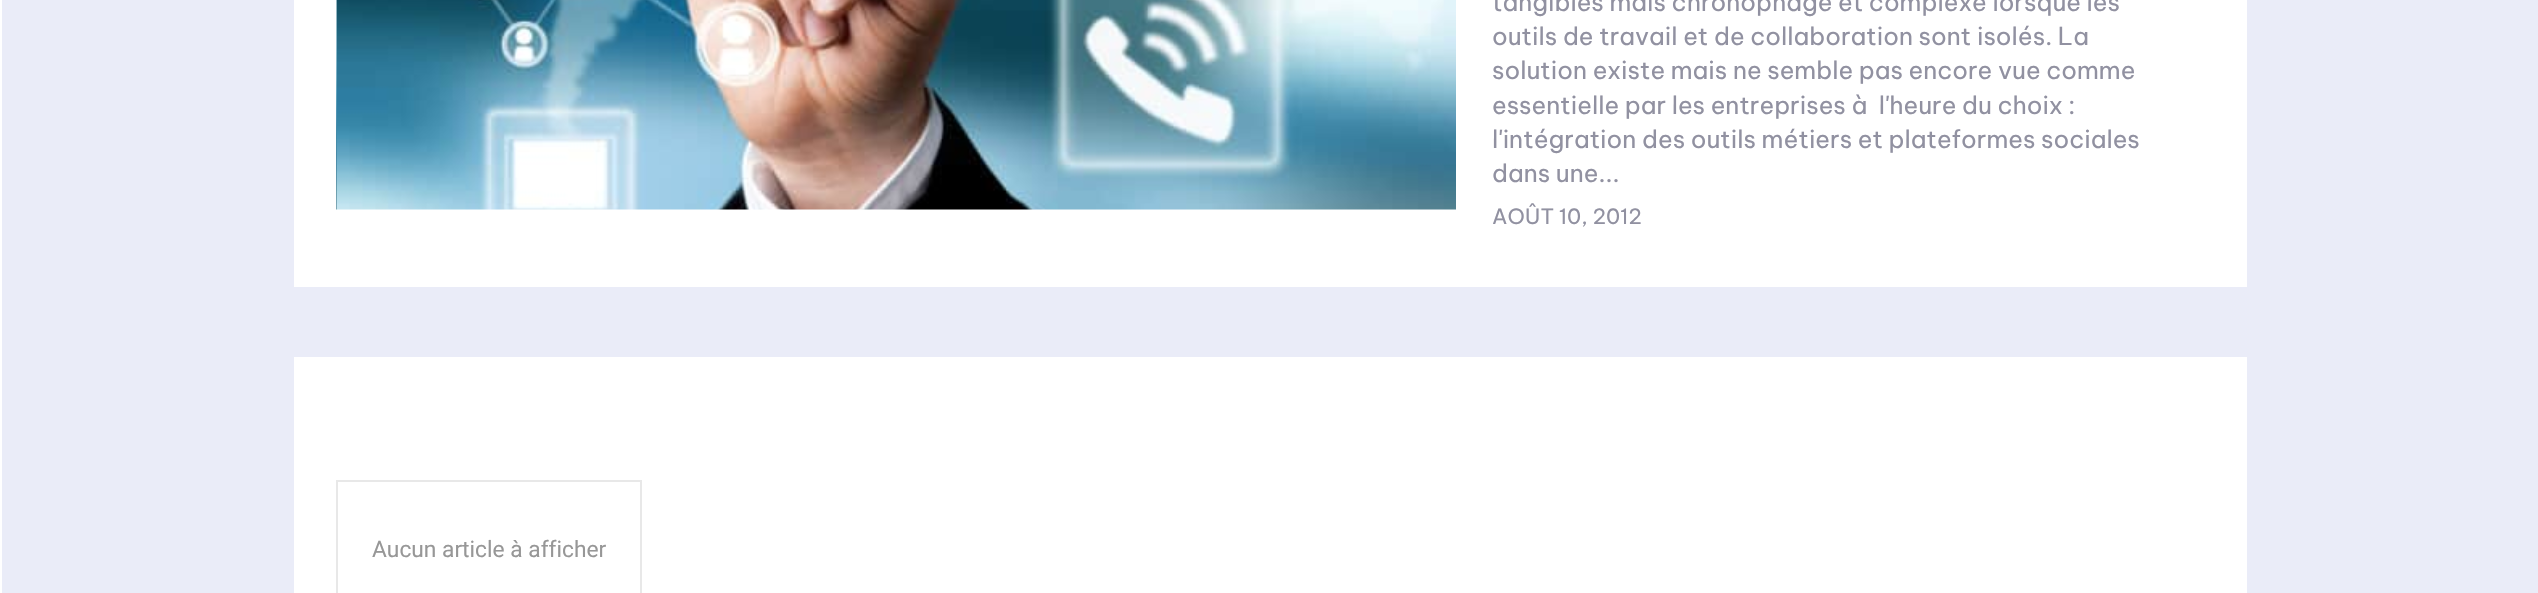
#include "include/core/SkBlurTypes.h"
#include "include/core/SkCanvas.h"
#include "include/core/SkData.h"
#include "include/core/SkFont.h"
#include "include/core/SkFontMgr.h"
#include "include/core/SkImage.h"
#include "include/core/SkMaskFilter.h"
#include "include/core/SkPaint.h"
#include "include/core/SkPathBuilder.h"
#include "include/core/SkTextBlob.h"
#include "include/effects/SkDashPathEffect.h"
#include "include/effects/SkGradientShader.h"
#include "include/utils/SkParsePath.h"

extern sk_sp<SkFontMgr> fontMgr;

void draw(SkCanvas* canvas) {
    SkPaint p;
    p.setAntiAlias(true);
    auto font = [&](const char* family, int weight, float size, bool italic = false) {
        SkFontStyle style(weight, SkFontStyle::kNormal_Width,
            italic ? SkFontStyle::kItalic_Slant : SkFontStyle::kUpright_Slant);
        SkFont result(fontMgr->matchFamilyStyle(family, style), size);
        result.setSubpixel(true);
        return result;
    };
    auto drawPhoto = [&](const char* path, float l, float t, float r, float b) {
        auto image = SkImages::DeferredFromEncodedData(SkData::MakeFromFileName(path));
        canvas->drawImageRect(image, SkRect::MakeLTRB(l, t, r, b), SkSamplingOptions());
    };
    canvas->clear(0xFFFFFFFF);
    p.setColor(0xFFEAECF8);
    canvas->drawRect(SkRect::MakeLTRB(2, 0, 2538, 593), p);
    p.setColor(0xFFFFFFFF);
    canvas->drawRect(SkRect::MakeLTRB(294, 0, 2247, 287), p);
    drawPhoto("media/1.png", 336, 0, 1456, 210);
    auto font1 = font("Be Vietnam Pro", 400, 24.5f);
    p.setColor(0xFF9191A1);
    {
        const struct { const char* s; float x, y; } items[] = {
            {"tangibles mais chronophage et complexe lorsque les", 1492, 11},
            {"outils de travail et de collaboration sont isolés. La", 1492, 45},
            {"solution existe mais ne semble pas encore vue comme", 1492, 79},
            {"essentielle par les entreprises à  l'heure du choix :", 1492, 114},
            {"l'intégration des outils métiers et plateformes sociales", 1492, 148},
            {"dans une...", 1492, 182},
        };
        for (auto [s, x, y] : items) {
            canvas->drawString(s, x, y, font1, p);
        }
    }
    auto font2 = font("Be Vietnam Pro", 400, 21);
    canvas->drawString("AOÛT 10, 2012", 1492, 224, font2, p);
    p.setColor(0xFFFFFFFF);
    canvas->drawRect(SkRect::MakeLTRB(294, 357, 2247, 593), p);
    p.setStyle(SkPaint::kStroke_Style);
    p.setStrokeWidth(2);
    p.setColor(0xFFE8E8E8);
    canvas->drawRect(SkRect::MakeLTRB(337, 481, 641, 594), p);
    auto font3 = font("Roboto", 400, 22.75f);
    p.setStyle(SkPaint::kFill_Style);
    p.setColor(0xFF979797);
    canvas->drawString("Aucun article à afficher", 372, 557, font3, p);
}
